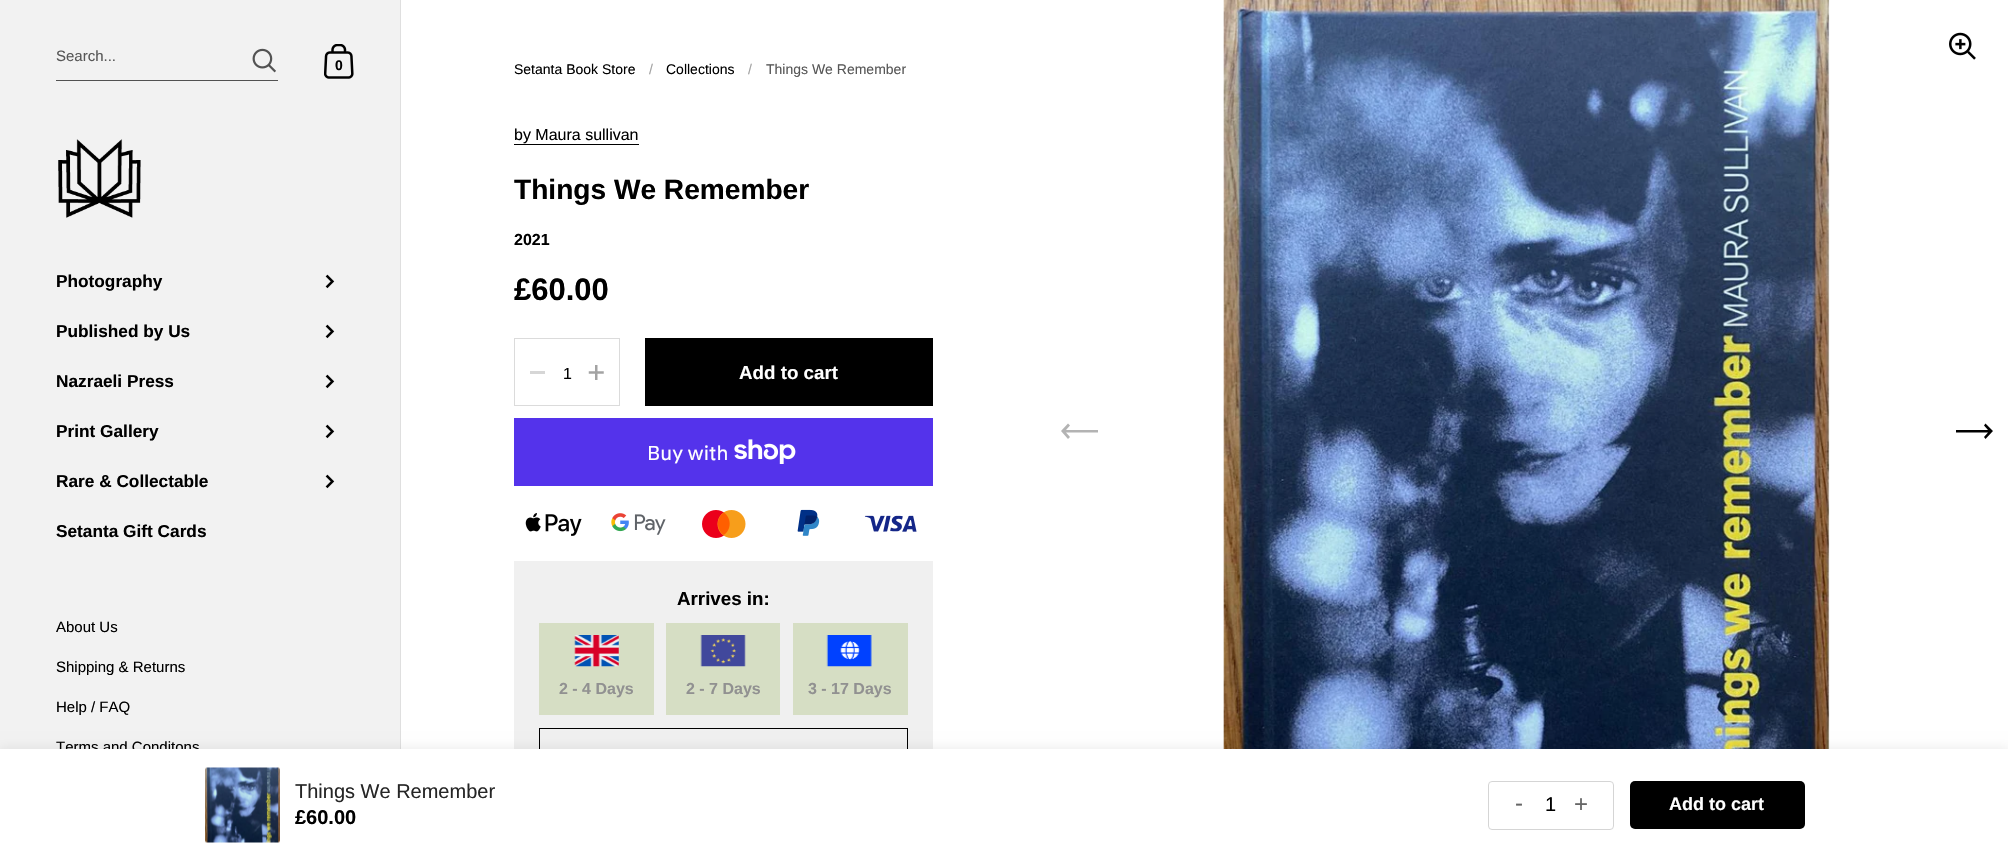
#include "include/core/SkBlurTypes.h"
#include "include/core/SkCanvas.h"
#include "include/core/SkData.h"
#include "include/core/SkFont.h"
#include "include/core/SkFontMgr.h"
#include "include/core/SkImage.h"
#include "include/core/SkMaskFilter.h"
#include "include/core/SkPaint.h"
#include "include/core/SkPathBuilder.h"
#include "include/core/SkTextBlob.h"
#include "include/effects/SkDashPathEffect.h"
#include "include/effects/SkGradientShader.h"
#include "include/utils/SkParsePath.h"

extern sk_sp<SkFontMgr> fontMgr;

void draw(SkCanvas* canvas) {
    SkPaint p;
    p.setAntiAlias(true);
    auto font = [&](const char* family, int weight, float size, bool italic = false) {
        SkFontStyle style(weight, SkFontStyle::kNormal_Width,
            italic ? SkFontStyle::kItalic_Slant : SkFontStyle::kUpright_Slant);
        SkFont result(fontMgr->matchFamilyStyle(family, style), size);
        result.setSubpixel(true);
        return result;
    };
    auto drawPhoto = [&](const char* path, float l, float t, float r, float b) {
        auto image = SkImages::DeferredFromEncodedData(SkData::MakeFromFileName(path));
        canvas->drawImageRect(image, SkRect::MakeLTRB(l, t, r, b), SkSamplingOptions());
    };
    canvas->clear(0xFFFFFFFF);
    {
        const struct { float l, t, r, b; SkColor color; } items[] = {
            {0, 0, 400, 749, 0xFFF2F2F2},
            {400, 0, 401, 749, 0xFFDFDFDF},
            {56, 80, 278, 81, 0xFF525252},
        };
        for (auto [l, t, r, b, color] : items) {
            p.setColor(color);
            canvas->drawRect(SkRect::MakeLTRB(l, t, r, b), p);
        }
    }
    auto font1 = font("Liberation Sans", 400, 15);
    p.setColor(0xFF575757);
    canvas->drawString("Search...", 56, 61, font1, p);
    drawPhoto("media/1.png", 252, 48, 276, 73);
    drawPhoto("media/2.png", 324, 44, 354, 79);
    auto font2 = font("Liberation Sans", 700, 14);
    p.setColor(0xFF000000);
    canvas->drawString("0", 335, 70, font2, p);
    drawPhoto("media/3.png", 58, 139, 141, 218);
    auto font3 = font("Liberation Sans", 700, 17.25f);
    canvas->drawString("Photography", 56, 287, font3, p);
    drawPhoto("media/4.png", 325, 274, 335, 289);
    canvas->drawString("Published by Us", 56, 337, font3, p);
    drawPhoto("media/4.png", 325, 324, 335, 339);
    canvas->drawString("Nazraeli Press", 56, 387, font3, p);
    drawPhoto("media/4.png", 325, 374, 335, 389);
    canvas->drawString("Print Gallery", 56, 437, font3, p);
    drawPhoto("media/4.png", 325, 424, 335, 439);
    canvas->drawString("Rare & Collectable", 56, 487, font3, p);
    drawPhoto("media/4.png", 325, 474, 335, 489);
    canvas->drawString("Setanta Gift Cards", 56, 537, font3, p);
    {
        const struct { const char* s; float x, y; } items[] = {
            {"About Us", 56, 632},
            {"Shipping & Returns", 56, 672},
            {"Help / FAQ", 56, 712},
            {"Terms and Conditons", 56, 752},
        };
        for (auto [s, x, y] : items) {
            canvas->drawString(s, x, y, font1, p);
        }
    }
    auto font4 = font("Liberation Sans", 400, 14);
    canvas->drawString("Setanta Book Store", 514, 74, font4, p);
    p.setColor(0xFFA3A3A3);
    canvas->drawString("/", 649, 74, font4, p);
    p.setColor(0xFF000000);
    canvas->drawString("Collections", 666, 74, font4, p);
    p.setColor(0xFFA3A3A3);
    canvas->drawString("/", 748, 74, font4, p);
    p.setColor(0xFF575757);
    canvas->drawString("Things We Remember", 766, 74, font4, p);
    auto font5 = font("Liberation Sans", 400, 16);
    p.setColor(0xFF000000);
    canvas->drawString("by Maura sullivan", 514, 140, font5, p);
    canvas->drawRect(SkRect::MakeLTRB(514, 144, 639, 145), p);
    auto font6 = font("Liberation Sans", 700, 28.1f);
    canvas->drawString("Things We Remember", 514, 199, font6, p);
    auto font7 = font("Liberation Sans", 700, 16);
    canvas->drawString("2021", 514, 245, font7, p);
    auto font8 = font("Liberation Sans", 700, 31);
    canvas->drawString("£60.00", 514, 300, font8, p);
    p.setStyle(SkPaint::kStroke_Style);
    p.setStrokeWidth(1);
    p.setColor(0xFFDBDBDB);
    canvas->drawRect(SkRect::MakeLTRB(514.5f, 338.5f, 619.5f, 405.5f), p);
    p.setStyle(SkPaint::kFill_Style);
    p.setColor(0xFFD6D6D6);
    canvas->drawRect(SkRect::MakeLTRB(530, 371, 545, 374), p);
    p.setColor(0xFF000000);
    canvas->drawString("1", 563, 379, font5, p);
    drawPhoto("media/5.png", 588, 365, 604, 380);
    canvas->drawRect(SkRect::MakeLTRB(645, 338, 933, 406), p);
    auto font9 = font("Liberation Sans", 700, 18.75f);
    p.setColor(0xFFFFFFFF);
    canvas->drawString("Add to cart", 739, 379, font9, p);
    p.setColor(0xFF5433EB);
    canvas->drawRect(SkRect::MakeLTRB(514, 418, 933, 486), p);
    auto font10 = font("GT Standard", 400, 20);
    p.setColor(0xFFFFFFFF);
    canvas->drawString("Buy with", 647, 460, font10, p);
    drawPhoto("media/6.png", 734, 439, 796, 464);
    drawPhoto("media/7.png", 525, 513, 582, 536);
    drawPhoto("media/8.png", 611, 513, 666, 535);
    drawPhoto("media/9.png", 702, 510, 746, 538);
    drawPhoto("media/10.png", 797, 509, 820, 536);
    drawPhoto("media/11.png", 864, 515, 917, 532);
    p.setColor(0xFFF0F0F0);
    canvas->drawRect(SkRect::MakeLTRB(514, 561, 933, 749), p);
    p.setColor(0xFF000000);
    canvas->drawString("Arrives in:", 677, 605, font9, p);
    p.setColor(0xFFD6DEC4);
    canvas->drawRect(SkRect::MakeLTRB(539, 623, 654, 715), p);
    drawPhoto("media/12.png", 574, 635, 619, 667);
    p.setColor(0xFF919191);
    canvas->drawString("2 - 4 Days", 559, 694, font7, p);
    p.setColor(0xFFD6DEC4);
    canvas->drawRect(SkRect::MakeLTRB(666, 623, 780, 715), p);
    drawPhoto("media/13.png", 700, 635, 746, 667);
    p.setColor(0xFF919191);
    canvas->drawString("2 - 7 Days", 686, 694, font7, p);
    p.setColor(0xFFD6DEC4);
    canvas->drawRect(SkRect::MakeLTRB(793, 623, 908, 715), p);
    drawPhoto("media/14.png", 826, 635, 872, 667);
    p.setColor(0xFF919191);
    canvas->drawString("3 - 17 Days", 808, 694, font7, p);
    p.setStyle(SkPaint::kStroke_Style);
    p.setColor(0xFF000000);
    canvas->drawRect(SkRect::MakeLTRB(539.5f, 728.5f, 907.5f, 782.5f), p);
    drawPhoto("media/15.png", 1223, 0, 1830, 749);
    drawPhoto("media/16.png", 1949, 32, 1976, 60);
    p.setStyle(SkPaint::kFill_Style);
    p.setColor(0xFFB3B3B3);
    canvas->drawPath(SkPathBuilder().moveTo(1068, 439).lineTo(1070, 437).lineTo(1066, 432.5f).lineTo(1098, 432.5f).lineTo(1098, 430).lineTo(1066, 430).lineTo(1070, 425.5f).lineTo(1068, 423.5f).lineTo(1061, 431).close().detach(), p);
    p.setColor(0xFF000000);
    canvas->drawPath(SkPathBuilder().moveTo(1985.5f, 423.5f).lineTo(1984, 425.5f).lineTo(1988, 430).lineTo(1956, 430).lineTo(1956, 432.5f).lineTo(1988, 432.5f).lineTo(1984, 437).lineTo(1985.5f, 439).lineTo(1993, 431).close().detach(), p);
    p.setColor(0x17000000);
    p.setMaskFilter(SkMaskFilter::MakeBlur(kNormal_SkBlurStyle, 6));
    canvas->drawRect(SkRect::MakeLTRB(0, 749, 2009, 861), p);
    p.setMaskFilter(nullptr);
    p.setColor(0xFFFFFFFF);
    canvas->drawRect(SkRect::MakeLTRB(0, 749, 2008, 861), p);
    drawPhoto("media/17.png", 205, 767, 280, 843);
    auto font11 = font("Liberation Sans", 400, 20);
    p.setColor(0xFF262626);
    canvas->drawString("Things We Remember", 295, 798, font11, p);
    auto font12 = font("Liberation Sans", 700, 20);
    p.setColor(0xFF000000);
    canvas->drawString("£60.00", 295, 824, font12, p);
    p.setStyle(SkPaint::kStroke_Style);
    p.setColor(0xFFD5D5D5);
    canvas->drawRoundRect(SkRect::MakeLTRB(1488.5f, 781.5f, 1613.5f, 829.5f), 3.5f, 3.5f, p);
    auto font13 = font("Liberation Sans", 400, 24);
    p.setStyle(SkPaint::kFill_Style);
    p.setColor(0xFF666666);
    canvas->drawString("-", 1515, 811, font13, p);
    p.setColor(0xFF000000);
    canvas->drawString("1", 1545, 811, font11, p);
    p.setColor(0xFF666666);
    canvas->drawString("+", 1574, 812, font13, p);
    p.setColor(0xFF000000);
    canvas->drawRoundRect(SkRect::MakeLTRB(1630, 781, 1805, 829), 5, 5, p);
    auto font14 = font("Liberation Sans", 700, 18);
    p.setColor(0xFFFFFFFF);
    canvas->drawString("Add to cart", 1669, 810, font14, p);
}
